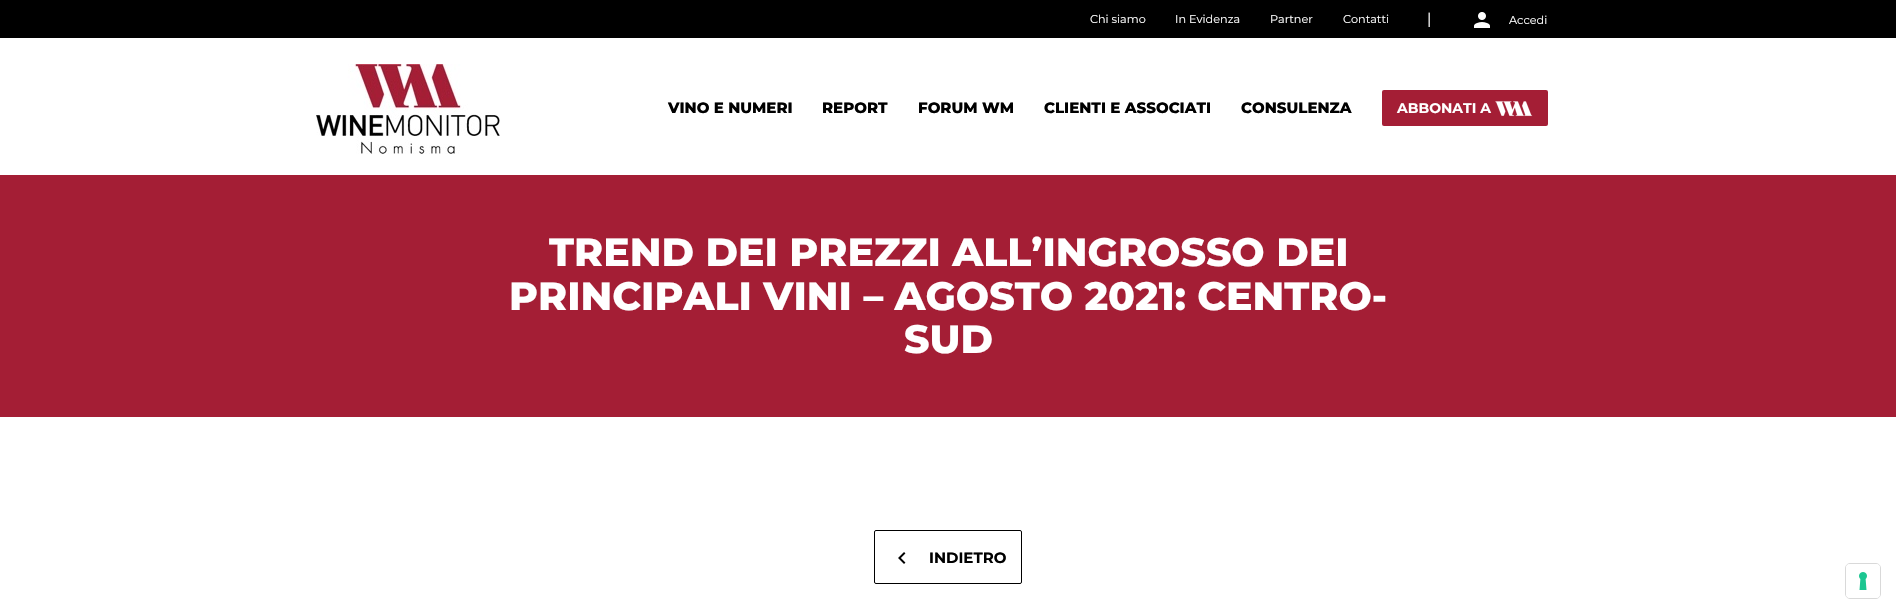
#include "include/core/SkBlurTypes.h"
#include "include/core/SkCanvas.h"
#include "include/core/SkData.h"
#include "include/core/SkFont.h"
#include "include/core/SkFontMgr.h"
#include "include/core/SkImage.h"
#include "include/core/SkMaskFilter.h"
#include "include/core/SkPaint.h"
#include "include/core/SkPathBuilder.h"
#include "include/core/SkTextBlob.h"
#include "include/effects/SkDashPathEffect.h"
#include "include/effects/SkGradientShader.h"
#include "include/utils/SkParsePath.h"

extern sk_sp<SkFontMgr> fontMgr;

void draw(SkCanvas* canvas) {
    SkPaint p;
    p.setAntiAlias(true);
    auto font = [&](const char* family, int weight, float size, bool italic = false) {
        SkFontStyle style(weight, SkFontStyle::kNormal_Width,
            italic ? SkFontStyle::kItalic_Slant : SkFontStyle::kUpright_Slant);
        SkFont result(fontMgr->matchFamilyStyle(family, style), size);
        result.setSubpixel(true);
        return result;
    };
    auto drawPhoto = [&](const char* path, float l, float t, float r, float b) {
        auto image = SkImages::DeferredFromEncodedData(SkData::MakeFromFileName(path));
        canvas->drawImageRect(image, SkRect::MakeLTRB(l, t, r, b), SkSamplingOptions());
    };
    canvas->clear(0xFFFFFFFF);
    p.setColor(0xFF000000);
    canvas->drawRect(SkRect::MakeLTRB(0, 0, 1896, 38), p);
    auto font1 = font("Montserrat", 400, 11.25f);
    p.setColor(0xFFFFFFFF);
    {
        const struct { const char* s; float x, y; } items[] = {
            {"Chi siamo", 1090, 23},
            {"In Evidenza", 1175, 23},
            {"Partner", 1270, 23},
            {"Contatti", 1343, 23},
        };
        for (auto [s, x, y] : items) {
            canvas->drawString(s, x, y, font1, p);
        }
    }
    auto font2 = font("Montserrat", 400, 15);
    canvas->drawString("|", 1427, 24, font2, p);
    drawPhoto("media/1.png", 1474, 12, 1490, 28);
    canvas->drawString("Accedi", 1509, 24, font1, p);
    drawPhoto("media/2.png", 316, 64, 500, 154);
    auto font3 = font("Montserrat", 800, 15);
    p.setColor(0xFF000000);
    {
        const struct { const char* s; float x, y; } items[] = {
            {"VINO E NUMERI", 668, 113},
            {"REPORT", 822, 113},
            {"FORUM WM", 918, 113},
            {"CLIENTI E ASSOCIATI", 1044, 113},
            {"CONSULENZA", 1241, 113},
        };
        for (auto [s, x, y] : items) {
            canvas->drawString(s, x, y, font3, p);
        }
    }
    p.setColor(0xFFA41E35);
    canvas->drawRoundRect(SkRect::MakeLTRB(1382, 90, 1548, 126), 2, 2, p);
    auto font4 = font("Montserrat", 700, 14);
    p.setColor(0xFFFFFFFF);
    canvas->drawString("ABBONATI A", 1397, 113, font4, p);
    drawPhoto("media/3.png", 1495, 101, 1533, 117);
    p.setColor(0xFFA41E35);
    canvas->drawRect(SkRect::MakeLTRB(0, 175, 1896, 417), p);
    auto font5 = font("Montserrat", 800, 39.4f);
    p.setColor(0xFFFFFFFF);
    {
        const struct { const char* s; float x, y; } items[] = {
            {"TREND DEI PREZZI ALL’INGROSSO DEI", 549, 266},
            {"PRINCIPALI VINI – AGOSTO 2021: CENTRO-", 509, 310},
            {"SUD", 904, 353},
        };
        for (auto [s, x, y] : items) {
            canvas->drawString(s, x, y, font5, p);
        }
    }
    p.setStyle(SkPaint::kStroke_Style);
    p.setStrokeWidth(1);
    p.setColor(0xFF000000);
    canvas->drawRoundRect(SkRect::MakeLTRB(874.5f, 530.5f, 1021.5f, 583.5f), 1.5f, 1.5f, p);
    drawPhoto("media/4.png", 898, 552, 906, 564);
    auto font6 = font("Montserrat", 700, 15);
    p.setStyle(SkPaint::kFill_Style);
    canvas->drawString("INDIETRO", 929, 563, font6, p);
    p.setStyle(SkPaint::kStroke_Style);
    p.setColor(0xFFD9D9D9);
    canvas->drawRoundRect(SkRect::MakeLTRB(1845.5f, 563.5f, 1880.5f, 598.5f), 4.5f, 4.5f, p);
    p.setStyle(SkPaint::kFill_Style);
    p.setColor(0xFFFFFFFF);
    canvas->drawRoundRect(SkRect::MakeLTRB(1846, 564, 1880, 598), 4, 4, p);
    drawPhoto("media/5.png", 1859, 572, 1867, 590);
}
